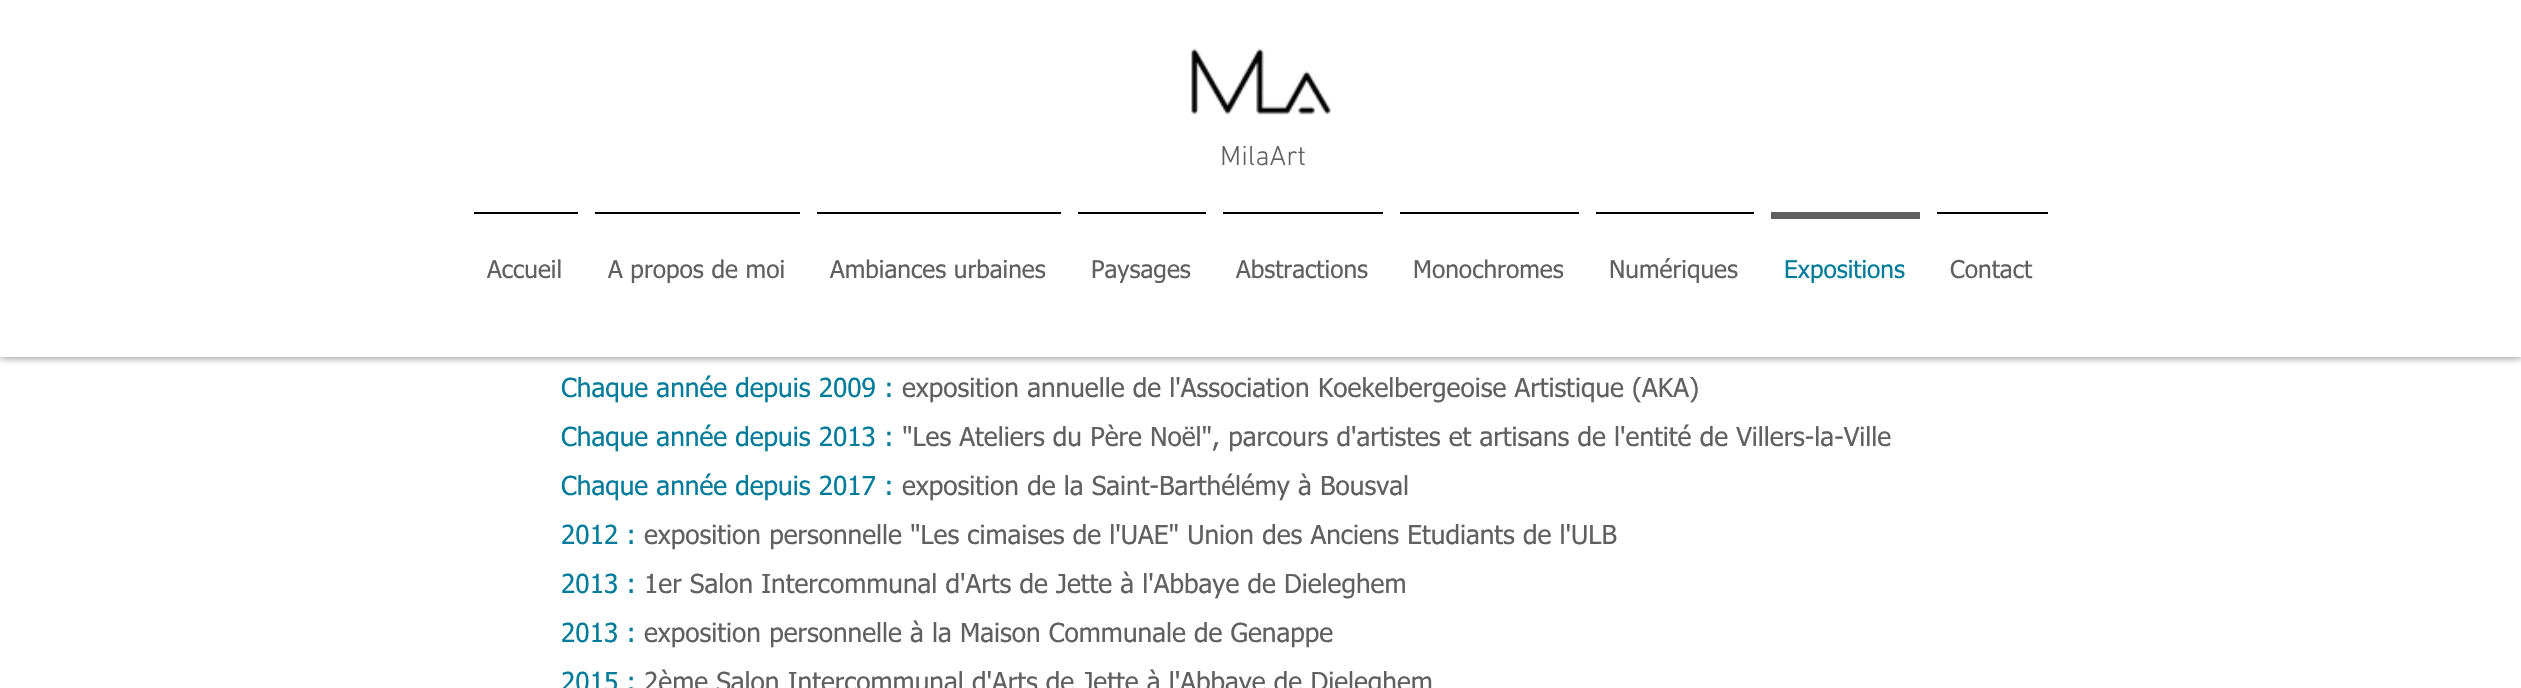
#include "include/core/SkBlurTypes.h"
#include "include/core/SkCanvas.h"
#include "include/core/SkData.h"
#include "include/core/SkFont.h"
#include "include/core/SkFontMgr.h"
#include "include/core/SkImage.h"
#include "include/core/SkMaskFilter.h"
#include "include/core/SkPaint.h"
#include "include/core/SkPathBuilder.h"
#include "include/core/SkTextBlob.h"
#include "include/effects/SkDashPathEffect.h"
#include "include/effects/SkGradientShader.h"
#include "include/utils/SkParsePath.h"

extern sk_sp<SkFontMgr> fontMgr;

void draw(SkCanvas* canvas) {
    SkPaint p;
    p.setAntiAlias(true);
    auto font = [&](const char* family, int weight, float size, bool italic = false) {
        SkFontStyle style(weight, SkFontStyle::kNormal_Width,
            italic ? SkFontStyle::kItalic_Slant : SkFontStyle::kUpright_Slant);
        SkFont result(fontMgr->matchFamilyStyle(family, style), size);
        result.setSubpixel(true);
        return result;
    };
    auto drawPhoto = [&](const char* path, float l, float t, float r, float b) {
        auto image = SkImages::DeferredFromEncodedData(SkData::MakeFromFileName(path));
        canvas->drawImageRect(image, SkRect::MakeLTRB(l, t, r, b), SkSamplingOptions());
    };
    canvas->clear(0xFFFFFFFF);
    canvas->save();
    canvas->clipRect(SkRect::MakeLTRB(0, 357, 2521, 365));
    p.setColor(0x80000000);
    p.setMaskFilter(SkMaskFilter::MakeBlur(kNormal_SkBlurStyle, 4.5f));
    canvas->drawRect(SkRect::MakeLTRB(0, 0, 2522, 357), p);
    p.setMaskFilter(nullptr);
    canvas->restore();
    drawPhoto("media/1.png", 1190, 48, 1331, 115);
    auto font1 = font("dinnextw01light", 300, 28);
    p.setColor(0xFF606060);
    canvas->drawString("MilaArt", 1220, 165, font1, p);
    p.setColor(0xFF000000);
    canvas->drawRect(SkRect::MakeLTRB(474, 212, 578, 214), p);
    auto font2 = font("tahoma", 400, 24.5f);
    p.setColor(0xFF606060);
    canvas->drawString("Accueil", 487, 278, font2, p);
    p.setColor(0xFF000000);
    canvas->drawRect(SkRect::MakeLTRB(595, 212, 800, 214), p);
    p.setColor(0xFF606060);
    canvas->drawString("A propos de moi", 608, 278, font2, p);
    p.setColor(0xFF000000);
    canvas->drawRect(SkRect::MakeLTRB(817, 212, 1061, 214), p);
    p.setColor(0xFF606060);
    canvas->drawString("Ambiances urbaines", 830, 278, font2, p);
    p.setColor(0xFF000000);
    canvas->drawRect(SkRect::MakeLTRB(1078, 212, 1206, 214), p);
    p.setColor(0xFF606060);
    canvas->drawString("Paysages", 1091, 278, font2, p);
    p.setColor(0xFF000000);
    canvas->drawRect(SkRect::MakeLTRB(1223, 212, 1383, 214), p);
    p.setColor(0xFF606060);
    canvas->drawString("Abstractions", 1236, 278, font2, p);
    p.setColor(0xFF000000);
    canvas->drawRect(SkRect::MakeLTRB(1400, 212, 1579, 214), p);
    p.setColor(0xFF606060);
    canvas->drawString("Monochromes", 1413, 278, font2, p);
    p.setColor(0xFF000000);
    canvas->drawRect(SkRect::MakeLTRB(1596, 212, 1754, 214), p);
    p.setColor(0xFF606060);
    canvas->drawString("Numériques", 1609, 278, font2, p);
    canvas->drawRect(SkRect::MakeLTRB(1771, 212, 1920, 219), p);
    p.setColor(0xFF007B9A);
    canvas->drawString("Expositions", 1784, 278, font2, p);
    p.setColor(0xFF000000);
    canvas->drawRect(SkRect::MakeLTRB(1937, 212, 2048, 214), p);
    p.setColor(0xFF606060);
    canvas->drawString("Contact", 1950, 278, font2, p);
    auto font3 = font("tahoma", 400, 26.25f);
    p.setColor(0xFF007B9A);
    canvas->drawString("Chaque année depuis 2009 :", 561, 397, font3, p);
    p.setColor(0xFF606060);
    canvas->drawString("exposition annuelle de l'Association Koekelbergeoise Artistique (AKA)", 902, 397, font3, p);
    p.setColor(0xFF007B9A);
    canvas->drawString("Chaque année depuis 2013 :", 561, 446, font3, p);
    p.setColor(0xFF606060);
    canvas->drawString("\"Les Ateliers du Père Noël\", parcours d'artistes et artisans de l'entité de Villers-la-Ville", 902, 446, font3, p);
    p.setColor(0xFF007B9A);
    canvas->drawString("Chaque année depuis 2017 :", 561, 495, font3, p);
    p.setColor(0xFF606060);
    canvas->drawString("exposition de la Saint-Barthélémy à Bousval", 902, 495, font3, p);
    p.setColor(0xFF007B9A);
    canvas->drawString("2012 :", 561, 544, font3, p);
    p.setColor(0xFF606060);
    canvas->drawString("exposition personnelle \"Les cimaises de l'UAE\" Union des Anciens Etudiants de l'ULB", 644, 544, font3, p);
    p.setColor(0xFF007B9A);
    canvas->drawString("2013 :", 561, 593, font3, p);
    p.setColor(0xFF606060);
    canvas->drawString("1er Salon Intercommunal d'Arts de Jette à l'Abbaye de Dieleghem", 644, 593, font3, p);
    p.setColor(0xFF007B9A);
    canvas->drawString("2013 :", 561, 642, font3, p);
    p.setColor(0xFF606060);
    canvas->drawString("exposition personnelle à la Maison Communale de Genappe", 644, 642, font3, p);
    p.setColor(0xFF007B9A);
    canvas->drawString("2015 :", 561, 691, font3, p);
    p.setColor(0xFF606060);
    canvas->drawString("2ème Salon Intercommunal d'Arts de Jette à l'Abbaye de Dieleghem", 644, 691, font3, p);
}
